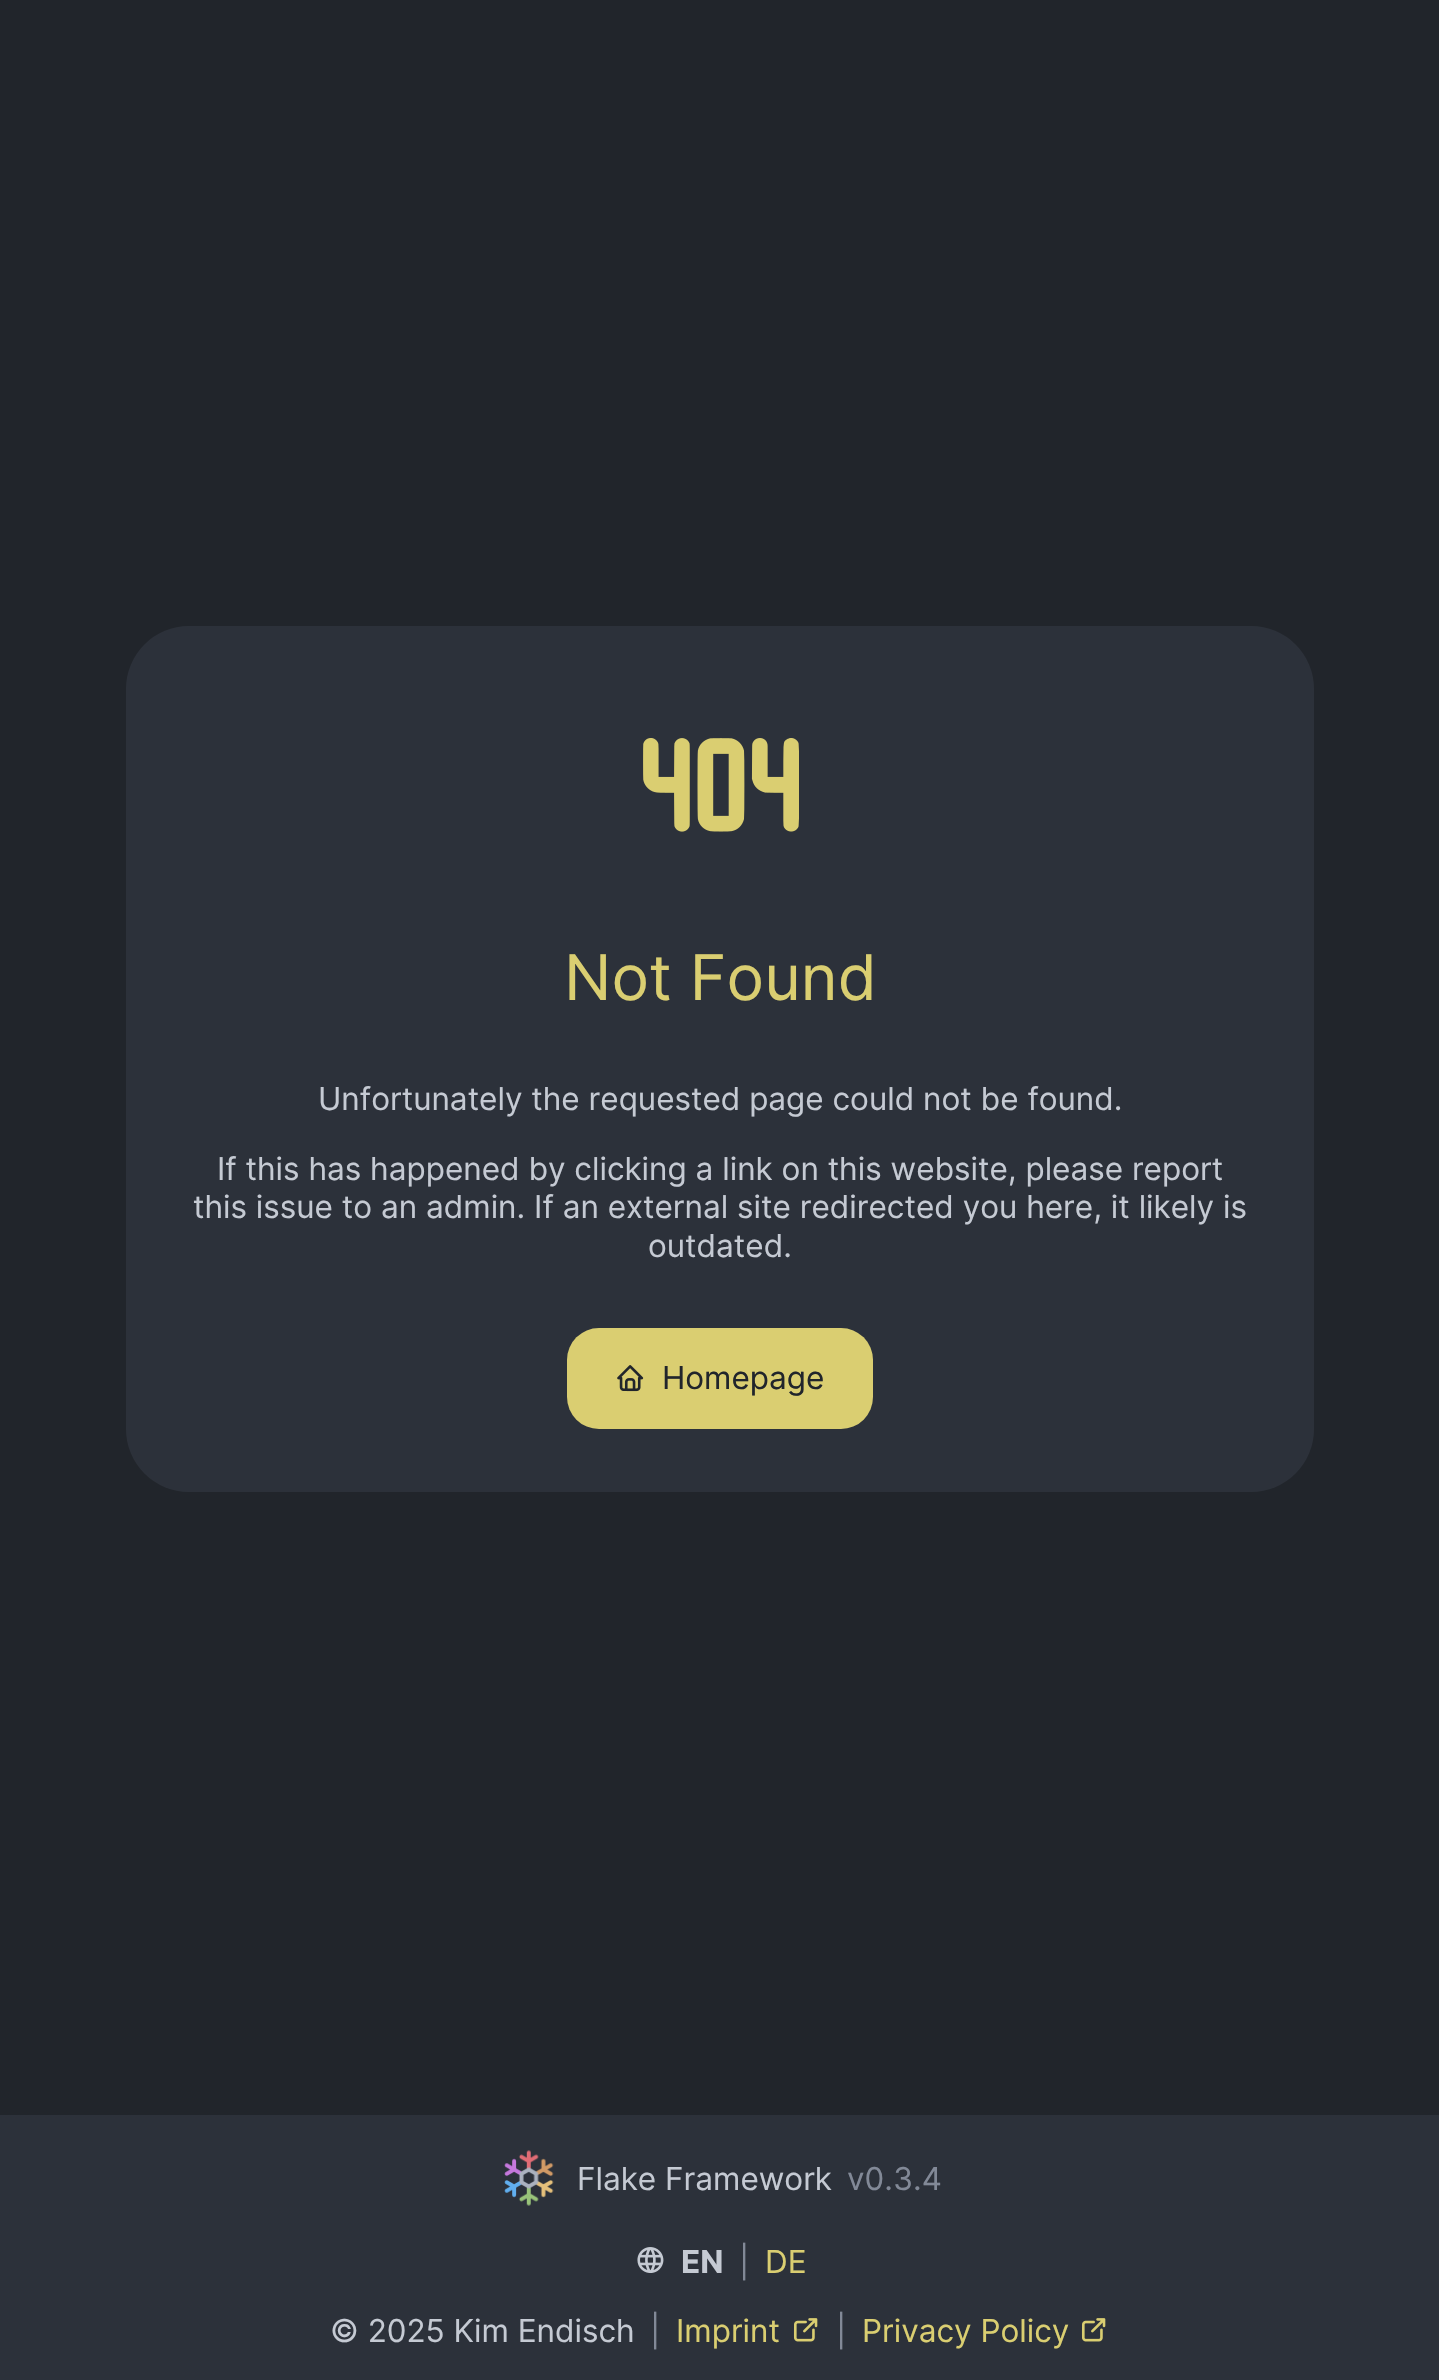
#include "include/core/SkBlurTypes.h"
#include "include/core/SkCanvas.h"
#include "include/core/SkData.h"
#include "include/core/SkFont.h"
#include "include/core/SkFontMgr.h"
#include "include/core/SkImage.h"
#include "include/core/SkMaskFilter.h"
#include "include/core/SkPaint.h"
#include "include/core/SkPathBuilder.h"
#include "include/core/SkTextBlob.h"
#include "include/effects/SkDashPathEffect.h"
#include "include/effects/SkGradientShader.h"
#include "include/utils/SkParsePath.h"

extern sk_sp<SkFontMgr> fontMgr;

void draw(SkCanvas* canvas) {
    SkPaint p;
    p.setAntiAlias(true);
    auto font = [&](const char* family, int weight, float size, bool italic = false) {
        SkFontStyle style(weight, SkFontStyle::kNormal_Width,
            italic ? SkFontStyle::kItalic_Slant : SkFontStyle::kUpright_Slant);
        SkFont result(fontMgr->matchFamilyStyle(family, style), size);
        result.setSubpixel(true);
        return result;
    };
    auto drawPhoto = [&](const char* path, float l, float t, float r, float b) {
        auto image = SkImages::DeferredFromEncodedData(SkData::MakeFromFileName(path));
        canvas->drawImageRect(image, SkRect::MakeLTRB(l, t, r, b), SkSamplingOptions());
    };
    canvas->clear(0xFF21252B);
    p.setColor(0xFF2C313A);
    canvas->drawRoundRect(SkRect::MakeLTRB(126, 626, 1314, 1492), 63, 63, p);
    drawPhoto("media/1.png", 643, 738, 799, 832);
    auto font1 = font("Inter", 400, 63);
    p.setColor(0xFFDACE71);
    canvas->drawString("Not Found", 564, 1000, font1, p);
    auto font2 = font("Inter", 400, 31.5f);
    p.setColor(0xFFC5CAD3);
    {
        const struct { const char* s; float x, y; } items[] = {
            {"Unfortunately the requested page could not be found.", 318, 1110},
            {"If this has happened by clicking a link on this website, please report", 217, 1180},
            {"this issue to an admin. If an external site redirected you here, it likely is", 193, 1218},
            {"outdated.", 648, 1257},
        };
        for (auto [s, x, y] : items) {
            canvas->drawString(s, x, y, font2, p);
        }
    }
    p.setColor(0xFFDACE71);
    canvas->drawRoundRect(SkRect::MakeLTRB(567, 1328, 873, 1429), 32, 32, p);
    drawPhoto("media/2.png", 617, 1365, 644, 1392);
    p.setColor(0xFF21252B);
    canvas->drawString("Homepage", 662, 1389, font2, p);
    p.setColor(0xFF2C313A);
    canvas->drawRect(SkRect::MakeLTRB(0, 2115, 1439, 2380), p);
    drawPhoto("media/3.png", 504, 2150, 554, 2206);
    p.setColor(0xFFC5CAD3);
    canvas->drawString("Flake Framework", 577, 2190, font2, p);
    p.setColor(0xFF828997);
    canvas->drawString("v0.3.4", 847, 2190, font2, p);
    drawPhoto("media/4.png", 637, 2247, 664, 2273);
    auto font3 = font("Inter", 700, 31.5f);
    p.setColor(0xFFC5CAD3);
    canvas->drawString("EN", 681, 2273, font3, p);
    p.setColor(0xFF828997);
    canvas->drawString("|", 739, 2273, font2, p);
    p.setColor(0xFFDACE71);
    canvas->drawString("DE", 765, 2273, font2, p);
    p.setColor(0xFFC5CAD3);
    canvas->drawString("© 2025 Kim Endisch", 330, 2342, font2, p);
    p.setColor(0xFF828997);
    canvas->drawString("|", 650, 2342, font2, p);
    p.setColor(0xFFDACE71);
    canvas->drawString("Imprint", 676, 2342, font2, p);
    drawPhoto("media/5.png", 793, 2318, 818, 2342);
    p.setColor(0xFF828997);
    canvas->drawString("|", 836, 2342, font2, p);
    p.setColor(0xFFDACE71);
    canvas->drawString("Privacy Policy", 862, 2342, font2, p);
    drawPhoto("media/5.png", 1081, 2318, 1106, 2342);
}
